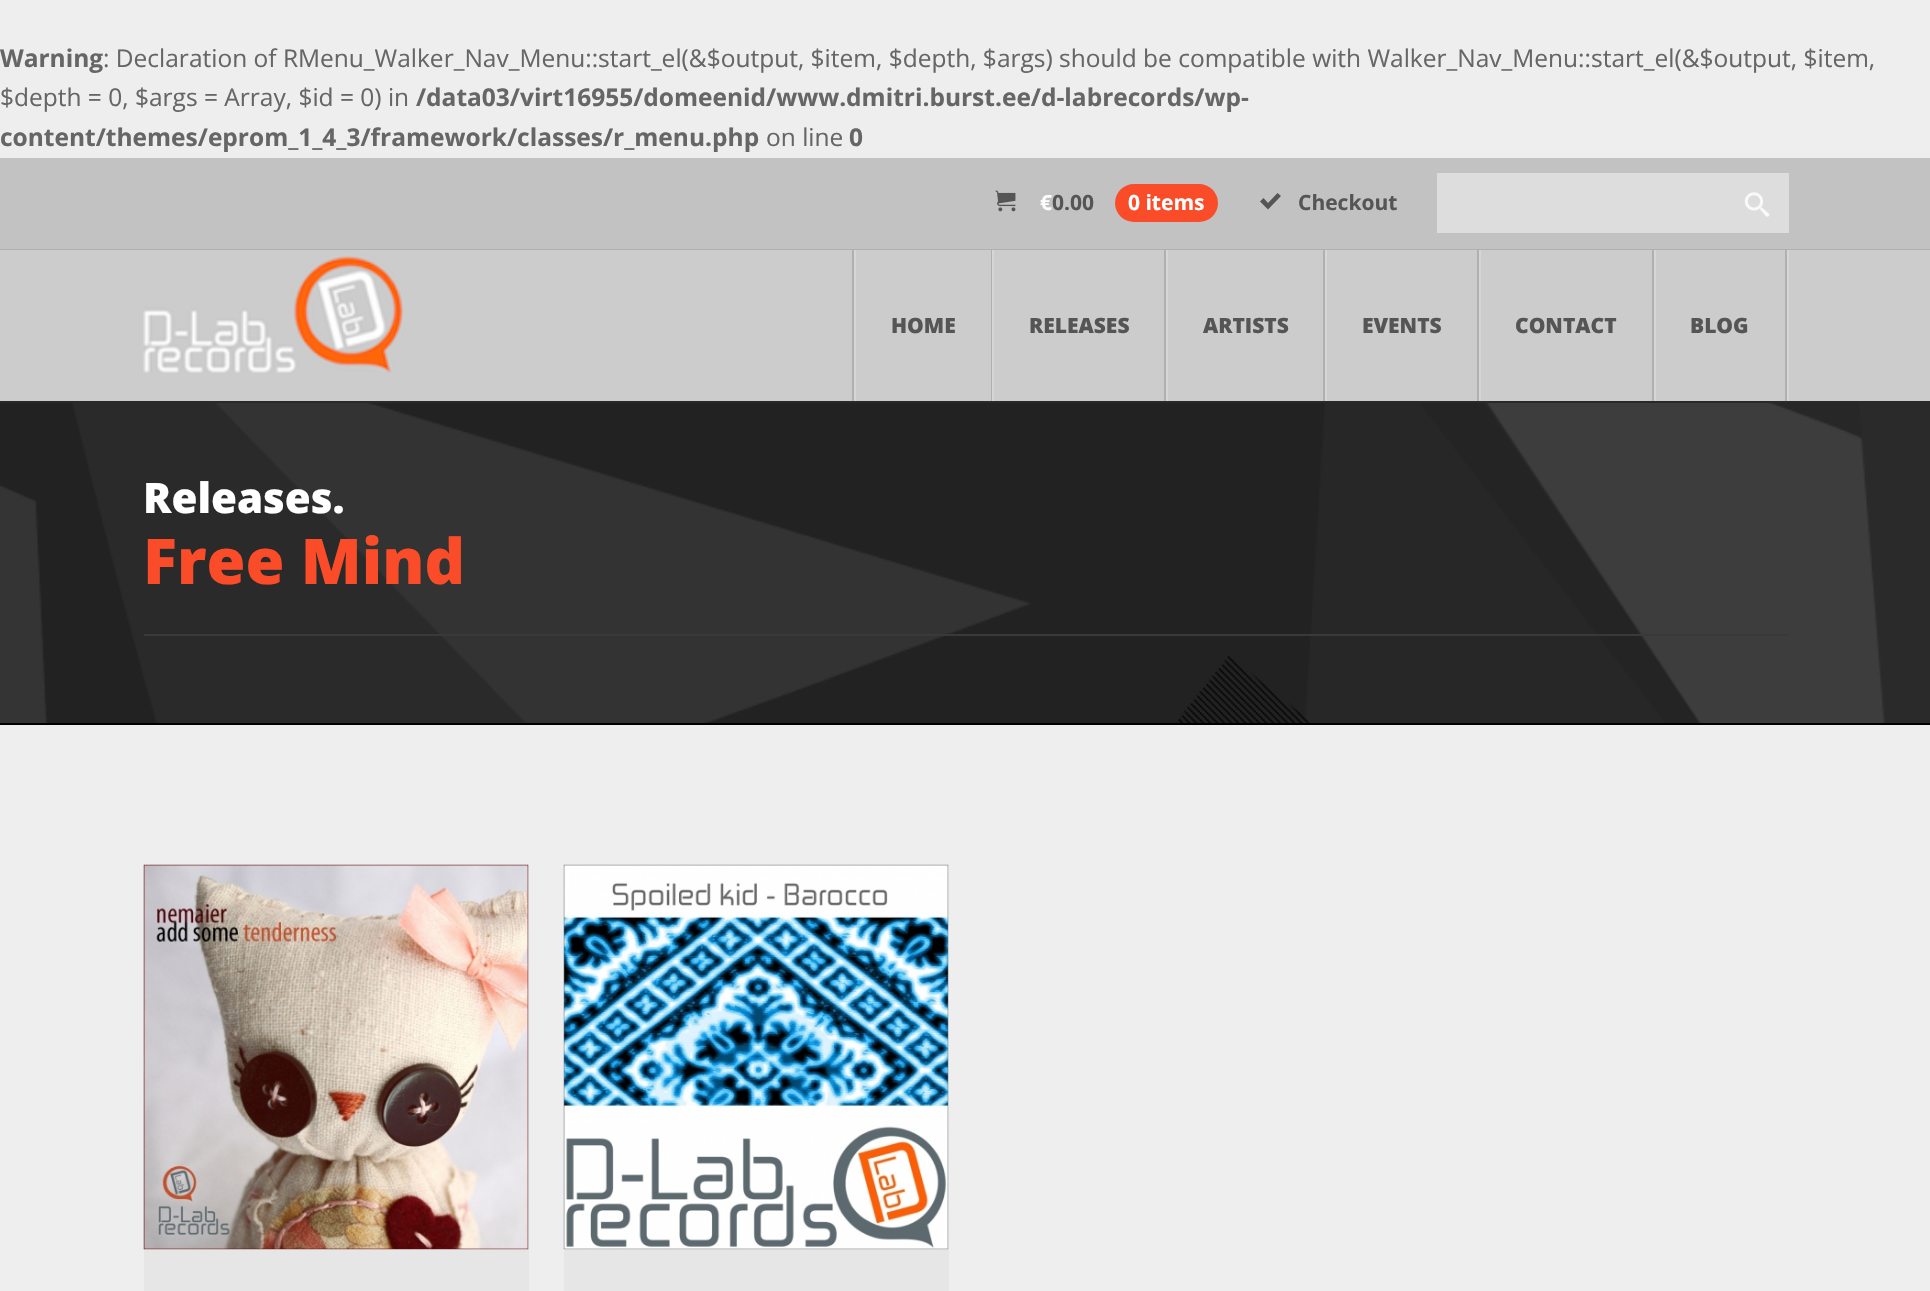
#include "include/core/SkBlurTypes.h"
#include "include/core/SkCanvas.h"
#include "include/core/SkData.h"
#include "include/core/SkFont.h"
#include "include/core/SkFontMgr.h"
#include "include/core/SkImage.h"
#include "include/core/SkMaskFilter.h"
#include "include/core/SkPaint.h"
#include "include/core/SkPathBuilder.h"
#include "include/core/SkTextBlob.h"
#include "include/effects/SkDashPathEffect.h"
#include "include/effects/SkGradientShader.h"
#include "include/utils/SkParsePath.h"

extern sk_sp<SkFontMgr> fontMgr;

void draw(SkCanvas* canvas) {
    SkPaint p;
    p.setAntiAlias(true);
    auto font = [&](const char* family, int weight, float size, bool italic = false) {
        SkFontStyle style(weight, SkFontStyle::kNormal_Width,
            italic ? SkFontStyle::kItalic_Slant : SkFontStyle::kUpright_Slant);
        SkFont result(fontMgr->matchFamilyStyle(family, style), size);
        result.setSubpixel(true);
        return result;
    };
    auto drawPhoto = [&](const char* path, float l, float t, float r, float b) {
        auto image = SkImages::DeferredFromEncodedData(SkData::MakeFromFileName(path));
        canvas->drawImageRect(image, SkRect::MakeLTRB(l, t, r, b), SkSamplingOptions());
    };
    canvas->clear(0xFFEEEEEE);
    auto font1 = font("Open Sans", 700, 24.5f);
    p.setColor(0xFF666666);
    canvas->drawString("Warning", 0, 67, font1, p);
    auto font2 = font("Open Sans", 400, 24.5f);
    canvas->drawString(": Declaration of RMenu_Walker_Nav_Menu::start_el(&$output, $item, $depth, $args) should be compatible with Walker_Nav_Menu::start_el(&$output, $item,", 103, 67, font2, p);
    canvas->drawString("$depth = 0, $args = Array, $id = 0) in", 0, 106, font2, p);
    canvas->drawString("/data03/virt16955/domeenid/www.dmitri.burst.ee/d-labrecords/wp-", 416, 106, font1, p);
    canvas->drawString("content/themes/eprom_1_4_3/framework/classes/r_menu.php", 0, 146, font1, p);
    canvas->drawString("on line", 766, 146, font2, p);
    canvas->drawString("0", 849, 146, font1, p);
    p.setColor(0xFFC2C2C2);
    canvas->drawRect(SkRect::MakeLTRB(0, 158, 1930, 249), p);
    p.setColor(0xFFB0B0B0);
    canvas->drawRect(SkRect::MakeLTRB(0, 249, 1930, 250), p);
    drawPhoto("media/1.png", 995, 190, 1016, 212);
    auto font3 = font("Open Sans", 700, 21);
    p.setColor(0xFFFFFFFF);
    canvas->drawString("€", 1040, 210, font3, p);
    p.setColor(0xFF555555);
    canvas->drawString("0.00", 1052, 210, font3, p);
    p.setColor(0xFFFA4C29);
    canvas->drawRoundRect(SkRect::MakeLTRB(1115, 184, 1218, 222), 19, 19, p);
    p.setColor(0xFFFFFFFF);
    canvas->drawString("0 items", 1128, 210, font3, p);
    p.setColor(0xFF555555);
    canvas->drawPath(SkPathBuilder().moveTo(1277.5f, 193).lineTo(1268, 203).lineTo(1263.5f, 198).lineTo(1260, 201.5f).lineTo(1268, 209.5f).lineTo(1281, 196).close().detach(), p);
    canvas->drawString("Checkout", 1298, 210, font3, p);
    p.setColor(0xFFDDDDDD);
    canvas->drawRect(SkRect::MakeLTRB(1437, 173, 1789, 233), p);
    drawPhoto("media/2.png", 1744, 192, 1770, 217);
    p.setColor(0xFFCCCCCC);
    canvas->drawRect(SkRect::MakeLTRB(0, 250, 1930, 401), p);
    drawPhoto("media/3.png", 143, 254, 404, 373);
    {
        const struct { float l, t, r, b; SkColor color; } items[] = {
            {1787, 250, 1789, 401, 0xFFD6D6D6},
            {852, 250, 854, 401, 0xFFB0B0B0},
            {991, 250, 992, 401, 0xFFB0B0B0},
            {854, 250, 856, 401, 0xFFD6D6D6},
        };
        for (auto [l, t, r, b, color] : items) {
            p.setColor(color);
            canvas->drawRect(SkRect::MakeLTRB(l, t, r, b), p);
        }
    }
    auto font4 = font("Open Sans", 800, 21);
    p.setColor(0xFF555555);
    canvas->drawString("HOME", 891, 333, font4, p);
    p.setColor(0xFFB0B0B0);
    canvas->drawRect(SkRect::MakeLTRB(1164, 250, 1166, 401), p);
    p.setColor(0xFFD6D6D6);
    canvas->drawRect(SkRect::MakeLTRB(992, 250, 994, 401), p);
    p.setColor(0xFF555555);
    canvas->drawString("RELEASES", 1029, 333, font4, p);
    p.setColor(0xFFB0B0B0);
    canvas->drawRect(SkRect::MakeLTRB(1323, 250, 1325, 401), p);
    p.setColor(0xFFD6D6D6);
    canvas->drawRect(SkRect::MakeLTRB(1166, 250, 1168, 401), p);
    p.setColor(0xFF555555);
    canvas->drawString("ARTISTS", 1203, 333, font4, p);
    p.setColor(0xFFB0B0B0);
    canvas->drawRect(SkRect::MakeLTRB(1477, 250, 1479, 401), p);
    p.setColor(0xFFD6D6D6);
    canvas->drawRect(SkRect::MakeLTRB(1325, 250, 1327, 401), p);
    p.setColor(0xFF555555);
    canvas->drawString("EVENTS", 1362, 333, font4, p);
    p.setColor(0xFFB0B0B0);
    canvas->drawRect(SkRect::MakeLTRB(1652, 250, 1654, 401), p);
    p.setColor(0xFFD6D6D6);
    canvas->drawRect(SkRect::MakeLTRB(1479, 250, 1481, 401), p);
    p.setColor(0xFF555555);
    canvas->drawString("CONTACT", 1515, 333, font4, p);
    p.setColor(0xFFB0B0B0);
    canvas->drawRect(SkRect::MakeLTRB(1785, 250, 1787, 401), p);
    p.setColor(0xFFD6D6D6);
    canvas->drawRect(SkRect::MakeLTRB(1654, 250, 1656, 401), p);
    p.setColor(0xFF555555);
    canvas->drawString("BLOG", 1690, 333, font4, p);
    drawPhoto("media/4.png", 0, 403, 1930, 723);
    p.setColor(0xFF292929);
    canvas->drawRect(SkRect::MakeLTRB(0, 401, 1930, 403), p);
    p.setColor(0xFF000000);
    canvas->drawRect(SkRect::MakeLTRB(0, 723, 1930, 725), p);
    auto font5 = font("Open Sans", 800, 42);
    p.setColor(0xFFFFFFFF);
    canvas->drawString("Releases.", 143, 513, font5, p);
    auto font6 = font("Open Sans", 800, 63);
    p.setColor(0xFFFA4C29);
    canvas->drawString("Free Mind", 143, 584, font6, p);
    p.setColor(0xFF393939);
    canvas->drawRect(SkRect::MakeLTRB(144, 634, 1789, 636), p);
    drawPhoto("media/5.png", 143, 864, 529, 1250);
    p.setColor(0xFFE6E6E6);
    canvas->drawRect(SkRect::MakeLTRB(144, 1250, 529, 1291), p);
    drawPhoto("media/6.png", 563, 864, 949, 1250);
    canvas->drawRect(SkRect::MakeLTRB(564, 1250, 949, 1291), p);
}
